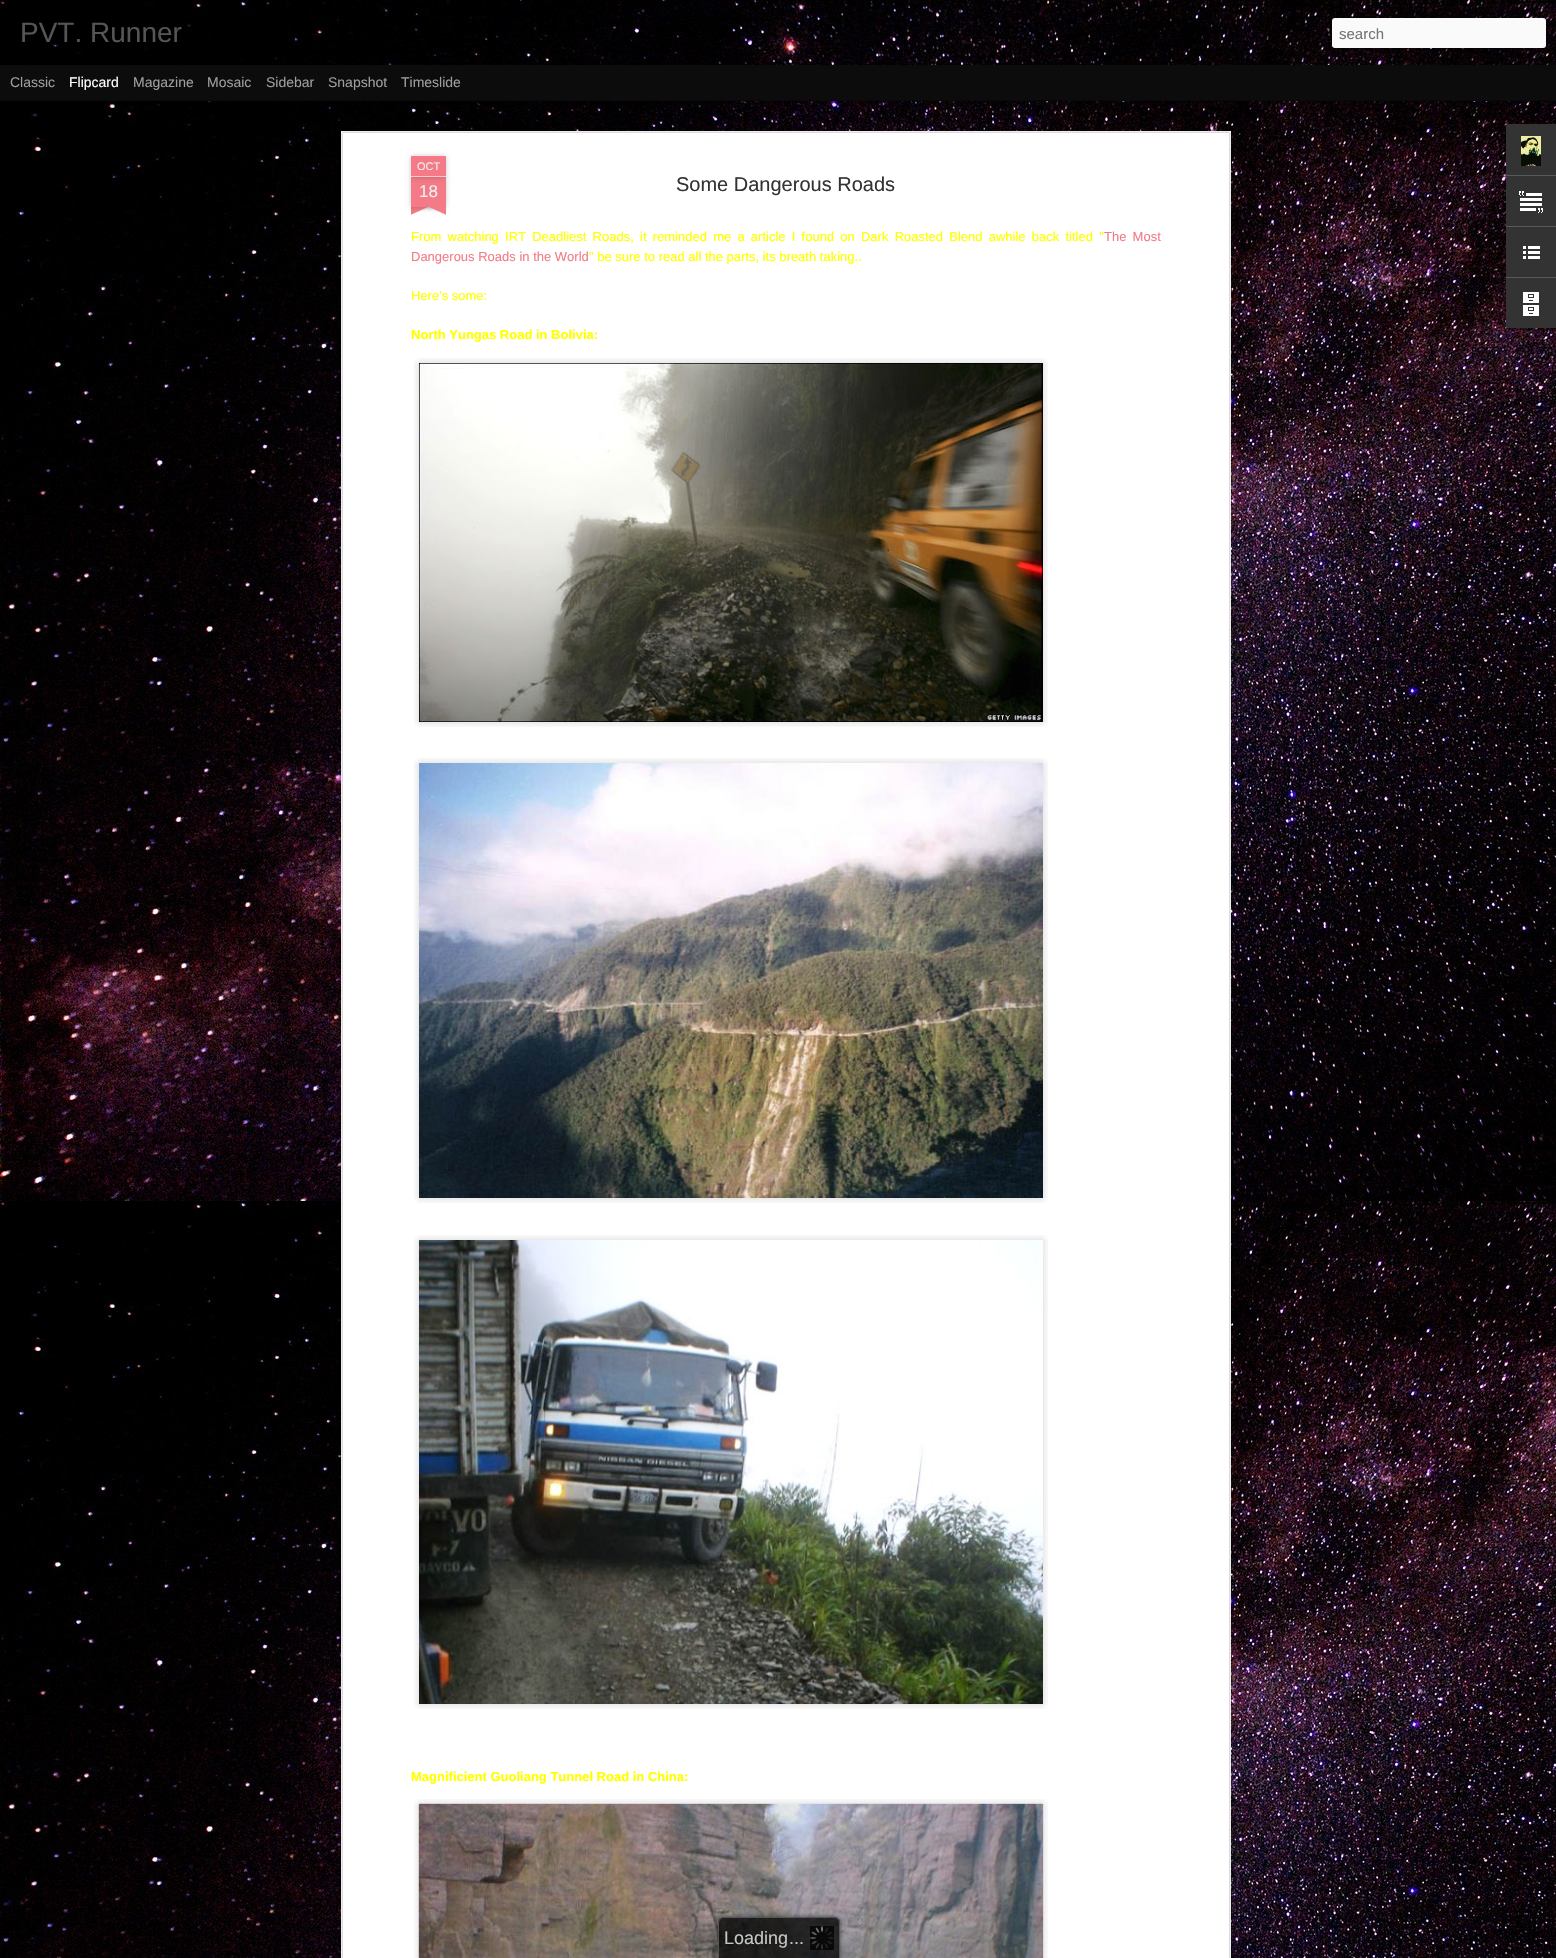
#include "include/core/SkBlurTypes.h"
#include "include/core/SkCanvas.h"
#include "include/core/SkData.h"
#include "include/core/SkFont.h"
#include "include/core/SkFontMgr.h"
#include "include/core/SkImage.h"
#include "include/core/SkMaskFilter.h"
#include "include/core/SkPaint.h"
#include "include/core/SkPathBuilder.h"
#include "include/core/SkTextBlob.h"
#include "include/effects/SkDashPathEffect.h"
#include "include/effects/SkGradientShader.h"
#include "include/utils/SkParsePath.h"

extern sk_sp<SkFontMgr> fontMgr;

void draw(SkCanvas* canvas) {
    SkPaint p;
    p.setAntiAlias(true);
    auto font = [&](const char* family, int weight, float size, bool italic = false) {
        SkFontStyle style(weight, SkFontStyle::kNormal_Width,
            italic ? SkFontStyle::kItalic_Slant : SkFontStyle::kUpright_Slant);
        SkFont result(fontMgr->matchFamilyStyle(family, style), size);
        result.setSubpixel(true);
        return result;
    };
    auto drawTracked = [&](const char* s, float x, float y, const SkFont& font, const SkPaint& ink, float letter, float word) {
        std::vector<SkGlyphID> glyphs(font.countText(s, strlen(s), SkTextEncoding::kUTF8));
        std::vector<float> xs(glyphs.size());
        font.textToGlyphs(s, strlen(s), SkTextEncoding::kUTF8, glyphs);
        font.getXPos(glyphs, xs, x);
        float extra = 0;
        for (size_t i = 0; i < glyphs.size(); i++) {
            xs[i] += extra;
            extra += letter + word * (glyphs[i] == font.unicharToGlyph(' '));
        }
        canvas->drawTextBlob(SkTextBlob::MakeFromPosHGlyphs(glyphs, xs, y, font), 0, 0, ink);
    };
    auto drawPhoto = [&](const char* path, float l, float t, float r, float b) {
        auto image = SkImages::DeferredFromEncodedData(SkData::MakeFromFileName(path));
        canvas->drawImageRect(image, SkRect::MakeLTRB(l, t, r, b), SkSamplingOptions());
    };
    canvas->clear(0xFF0C0C0C);
    drawPhoto("media/2.png", 0, 101, 1556, 1958);
    p.setColor(0x80000000);
    p.setMaskFilter(SkMaskFilter::MakeBlur(kNormal_SkBlurStyle, 4));
    canvas->drawRect(SkRect::MakeLTRB(0, 65, 1556, 100), p);
    p.setMaskFilter(nullptr);
    drawPhoto("media/1.png", 0, 0, 1556, 65);
    auto font1 = font("Liberation Sans", 400, 28);
    p.setColor(0xFF555555);
    canvas->drawString("PVT. Runner", 20, 42, font1, p);
    p.setColor(0xFFFAFAFA);
    canvas->drawRoundRect(SkRect::MakeLTRB(1332, 18, 1546, 48), 3, 3, p);
    auto font2 = font("Liberation Sans", 400, 15);
    p.setColor(0xFF757575);
    canvas->drawString("search", 1339, 39, font2, p);
    p.setColor(0xFF0C0C0C);
    canvas->drawRect(SkRect::MakeLTRB(0, 65, 1556, 100), p);
    auto font3 = font("Liberation Sans", 400, 14);
    p.setColor(0xFF9E9E9E);
    canvas->drawString("Classic", 10, 87, font3, p);
    p.setColor(0xFFFFFFFF);
    canvas->drawString("Flipcard", 69, 87, font3, p);
    p.setColor(0xFF9E9E9E);
    {
        const struct { const char* s; float x, y; } items[] = {
            {"Magazine", 133, 87},
            {"Mosaic", 207, 87},
            {"Sidebar", 266, 87},
            {"Snapshot", 328, 87},
            {"Timeslide", 401, 87},
        };
        for (auto [s, x, y] : items) {
            canvas->drawString(s, x, y, font3, p);
        }
    }
    p.setColor(0xFFFFFFFF);
    canvas->drawRect(SkRect::MakeLTRB(341, 131, 1231, 1958), p);
    drawPhoto("media/3.png", 341, 131, 1231, 1958);
    p.setColor(0x33000000);
    p.setMaskFilter(SkMaskFilter::MakeBlur(kNormal_SkBlurStyle, 2.5f));
    canvas->drawRect(SkRect::MakeLTRB(411, 177, 446, 207), p);
    p.setMaskFilter(nullptr);
    p.setColor(0xFFF37A86);
    canvas->drawRect(SkRect::MakeLTRB(411, 177, 446, 207), p);
    p.setColor(0x33000000);
    p.setMaskFilter(SkMaskFilter::MakeBlur(kNormal_SkBlurStyle, 2.5f));
    canvas->drawRoundRect(SkRect::MakeLTRB(411, 156, 446, 177), 1, 1, p);
    p.setMaskFilter(nullptr);
    p.setColor(0xFFF37A86);
    canvas->drawPath(SkPathBuilder().moveTo(412, 156).lineTo(445, 156).cubicTo(445.5f, 156, 446, 156.5f, 446, 157).lineTo(446, 177).lineTo(411, 177).lineTo(411, 157).cubicTo(411, 156.5f, 411.5f, 156, 412, 156).close().detach(), p);
    p.setColor(0xFFFACACF);
    canvas->drawRect(SkRect::MakeLTRB(411, 176, 446, 177), p);
    auto font4 = font("Liberation Sans", 400, 11);
    p.setColor(0xFFEEEEEE);
    canvas->drawString("OCT", 417, 170, font4, p);
    auto font5 = font("Liberation Sans", 400, 17);
    canvas->drawString("18", 419, 197, font5, p);
    canvas->save();
    canvas->clipRect(SkRect::MakeLTRB(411, 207, 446, 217));
    p.setColor(0x33000000);
    p.setMaskFilter(SkMaskFilter::MakeBlur(kNormal_SkBlurStyle, 2.5f));
    canvas->drawRect(SkRect::MakeLTRB(402, 197, 452, 207), p);
    p.setMaskFilter(nullptr);
    canvas->restore();
    canvas->save();
    canvas->clipRect(SkRect::MakeLTRB(411, 207, 446, 217));
    p.setColor(0xFFF37A86);
    canvas->drawPath(SkPathBuilder().moveTo(402, 208).lineTo(448, 187).lineTo(452, 196).lineTo(406, 217).close().detach(), p);
    canvas->restore();
    canvas->save();
    canvas->clipRect(SkRect::MakeLTRB(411, 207, 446, 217));
    p.setColor(0x33000000);
    p.setMaskFilter(SkMaskFilter::MakeBlur(kNormal_SkBlurStyle, 2.5f));
    canvas->drawRect(SkRect::MakeLTRB(405, 197, 455, 207), p);
    p.setMaskFilter(nullptr);
    canvas->restore();
    canvas->save();
    canvas->clipRect(SkRect::MakeLTRB(411, 207, 446, 217));
    p.setColor(0xFFF37A86);
    canvas->drawPath(SkPathBuilder().moveTo(409, 187).lineTo(455, 208).lineTo(451, 217).lineTo(405, 196).close().detach(), p);
    canvas->restore();
    auto font6 = font("Liberation Sans", 400, 20);
    p.setColor(0xFF333333);
    canvas->drawString("Some Dangerous Roads", 676, 191, font6, p);
    auto font7 = font("Liberation Sans", 400, 13);
    p.setColor(0xFFFFFF00);
    drawTracked("From watching IRT Deadliest Roads, it reminded me a article I found on Dark Roasted Blend awhile back titled \"", 411, 241, font7, p, 0, 2.6f);
    p.setColor(0xFFF37A86);
    drawTracked("The Most", 1104, 241, font7, p, 0, 2.6f);
    canvas->drawString("Dangerous Roads in the World", 411, 261, font7, p);
    p.setColor(0xFFFFFF00);
    canvas->drawString("\" be sure to read all the parts, its breath taking..", 589, 261, font7, p);
    canvas->drawString("Here's some:", 411, 300, font7, p);
    auto font8 = font("Liberation Sans", 700, 13);
    canvas->drawString("North Yungas Road in Bolivia:", 411, 339, font8, p);
    drawPhoto("media/4.png", 414, 358, 1048, 727);
    drawPhoto("media/5.png", 414, 758, 1048, 1203);
    drawPhoto("media/6.png", 414, 1235, 1048, 1709);
    canvas->drawString("Magnificient Guoliang Tunnel Road in China:", 411, 1781, font8, p);
    drawPhoto("media/7.png", 414, 1799, 1048, 1958);
    drawPhoto("media/8.png", 418, 1803, 1044, 1958);
    p.setColor(0x4D000000);
    p.setMaskFilter(SkMaskFilter::MakeBlur(kNormal_SkBlurStyle, 1.5f));
    canvas->drawRoundRect(SkRect::MakeLTRB(1506, 125, 1556, 329), 2, 2, p);
    p.setMaskFilter(nullptr);
    p.setColor(0xFF333333);
    canvas->drawPath(SkPathBuilder().moveTo(1508, 124).lineTo(1556, 124).lineTo(1556, 328).lineTo(1508, 328).cubicTo(1507, 328, 1506, 327, 1506, 326).lineTo(1506, 126).cubicTo(1506, 125, 1507, 124, 1508, 124).close().detach(), p);
    canvas->drawPath(SkPathBuilder().moveTo(1508, 124).lineTo(1556, 124).lineTo(1556, 175).lineTo(1506, 175).lineTo(1506, 126).cubicTo(1506, 125, 1507, 124, 1508, 124).close().detach(), p);
    drawPhoto("media/9.png", 1521, 136, 1541, 166);
    p.setColor(0xFF585858);
    canvas->drawRect(SkRect::MakeLTRB(1506, 175, 1556, 176), p);
    drawPhoto("media/10.png", 1519, 191, 1543, 213);
    canvas->drawRect(SkRect::MakeLTRB(1506, 226, 1556, 227), p);
    drawPhoto("media/11.png", 1523, 246, 1540, 259);
    p.setColor(0xFF333333);
    canvas->drawPath(SkPathBuilder().moveTo(1506, 277).lineTo(1556, 277).lineTo(1556, 328).lineTo(1508, 328).cubicTo(1507, 328, 1506, 327, 1506, 326).close().detach(), p);
    p.setColor(0xFF585858);
    canvas->drawRect(SkRect::MakeLTRB(1506, 277, 1556, 278), p);
    drawPhoto("media/12.png", 1523, 292, 1539, 316);
    canvas->save();
    canvas->clipPath(SkPathBuilder(SkPathFillType::kEvenOdd).moveTo(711, 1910).lineTo(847, 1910).lineTo(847, 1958).lineTo(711, 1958).close().moveTo(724, 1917).lineTo(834, 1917).cubicTo(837.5f, 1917, 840, 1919.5f, 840, 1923).lineTo(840, 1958).lineTo(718, 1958).lineTo(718, 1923).cubicTo(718, 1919.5f, 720.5f, 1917, 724, 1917).close().detach(), true);
    p.setColor(0xBF333333);
    p.setMaskFilter(SkMaskFilter::MakeBlur(kNormal_SkBlurStyle, 2));
    canvas->drawRoundRect(SkRect::MakeLTRB(718, 1917, 840, 1958), 6, 6, p);
    p.setMaskFilter(nullptr);
    canvas->restore();
    p.setColor(0xBF000000);
    canvas->drawPath(SkPathBuilder().moveTo(724, 1917).lineTo(834, 1917).cubicTo(837.5f, 1917, 840, 1919.5f, 840, 1923).lineTo(840, 1958).lineTo(718, 1958).lineTo(718, 1923).cubicTo(718, 1919.5f, 720.5f, 1917, 724, 1917).close().detach(), p);
    p.setColor(0xBF666666);
    canvas->drawPath(SkPathBuilder(SkPathFillType::kEvenOdd).moveTo(724, 1917).lineTo(834, 1917).cubicTo(837, 1917, 840, 1920, 840, 1923).lineTo(840, 1958).lineTo(718, 1958).lineTo(718, 1923).cubicTo(718, 1920, 721, 1917, 724, 1917).close().moveTo(724, 1918).lineTo(834, 1918).cubicTo(837, 1918, 839, 1920, 839, 1923).lineTo(839, 1958).lineTo(719, 1958).lineTo(719, 1923).cubicTo(719, 1920, 721, 1918, 724, 1918).close().detach(), p);
    drawPhoto("media/13.png", 810, 1926, 834, 1950);
    auto font9 = font("Liberation Sans", 400, 18);
    p.setColor(0xFFC6C6C6);
    canvas->drawString("Loading", 724, 1944, font9, p);
    canvas->drawString("...", 789, 1944, font9, p);
}
